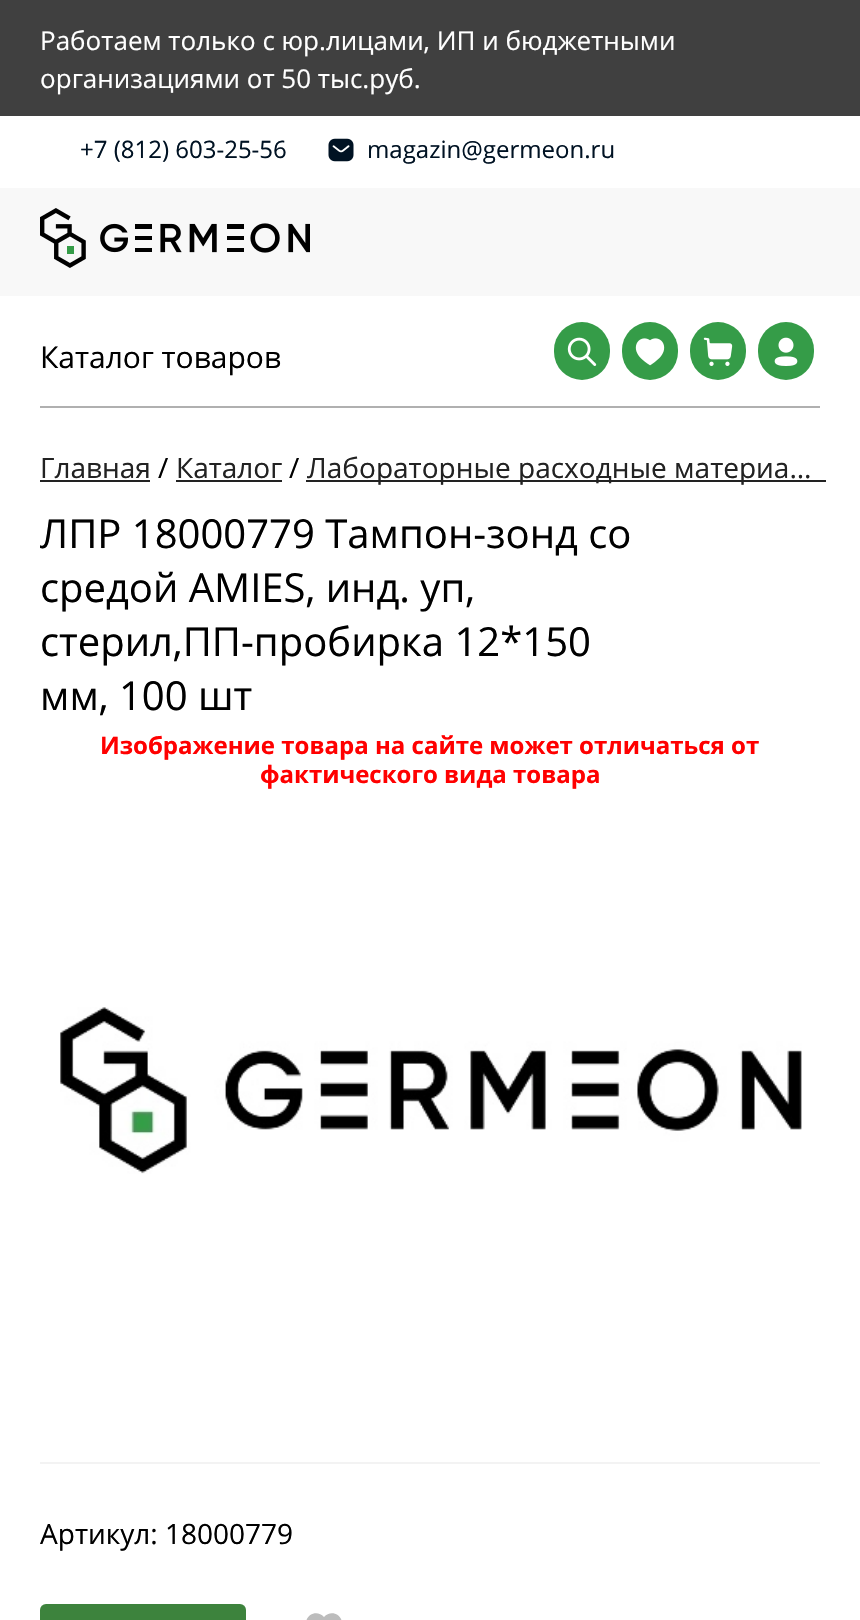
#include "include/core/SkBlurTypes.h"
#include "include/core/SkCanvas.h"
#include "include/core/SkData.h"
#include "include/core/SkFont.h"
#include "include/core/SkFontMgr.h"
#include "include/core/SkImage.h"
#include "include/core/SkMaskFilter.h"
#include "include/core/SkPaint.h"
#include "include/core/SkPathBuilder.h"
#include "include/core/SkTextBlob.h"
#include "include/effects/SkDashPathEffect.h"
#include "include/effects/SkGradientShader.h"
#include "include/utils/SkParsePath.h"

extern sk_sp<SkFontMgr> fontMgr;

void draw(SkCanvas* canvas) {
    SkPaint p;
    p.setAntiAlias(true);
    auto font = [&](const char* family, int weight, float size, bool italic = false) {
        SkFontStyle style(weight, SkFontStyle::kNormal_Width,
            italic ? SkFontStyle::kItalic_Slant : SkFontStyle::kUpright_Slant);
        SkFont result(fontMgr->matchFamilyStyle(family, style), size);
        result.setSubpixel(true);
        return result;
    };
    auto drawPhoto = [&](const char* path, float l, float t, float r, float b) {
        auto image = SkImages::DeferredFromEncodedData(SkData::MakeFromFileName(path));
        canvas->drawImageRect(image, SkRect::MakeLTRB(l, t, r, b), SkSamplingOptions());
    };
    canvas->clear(0xFFFFFFFF);
    p.setColor(0xFF404040);
    canvas->drawRect(SkRect::MakeLTRB(0, 0, 860, 116), p);
    auto font1 = font("Open Sans", 400, 26);
    p.setColor(0xFFFFFFFF);
    canvas->drawString("Работаем только с юр.лицами, ИП и бюджетными", 40, 50, font1, p);
    canvas->drawString("организациями от 50 тыс.руб.", 40, 88, font1, p);
    auto font2 = font("Open Sans", 400, 24);
    p.setColor(0xFF001223);
    canvas->drawString("+7 (812) 603-25-56", 80, 158, font2, p);
    drawPhoto("media/1.png", 328, 138, 354, 162);
    canvas->drawString("magazin@germeon.ru", 367, 158, font2, p);
    p.setColor(0xFFF8F8F8);
    canvas->drawRect(SkRect::MakeLTRB(0, 188, 860, 296), p);
    drawPhoto("media/2.png", 40, 208, 310, 268);
    p.setColor(0xFFB0B0B0);
    canvas->drawRect(SkRect::MakeLTRB(40, 406, 820, 408), p);
    auto font3 = font("Open Sans", 400, 30);
    p.setColor(0xFF000000);
    canvas->drawString("Каталог товаров", 40, 368, font3, p);
    p.setColor(0xFF359C48);
    canvas->drawRoundRect(SkRect::MakeLTRB(554, 322, 610, 380), 28, 28, p);
    drawPhoto("media/3.png", 567, 337, 597, 366);
    canvas->drawRoundRect(SkRect::MakeLTRB(622, 322, 678, 380), 28, 28, p);
    drawPhoto("media/4.png", 635, 338, 665, 366);
    canvas->drawRoundRect(SkRect::MakeLTRB(690, 322, 746, 380), 28, 28, p);
    drawPhoto("media/5.png", 703, 337, 733, 366);
    canvas->drawRoundRect(SkRect::MakeLTRB(758, 322, 814, 380), 28, 28, p);
    drawPhoto("media/6.png", 774, 337, 798, 366);
    auto font4 = font("Open Sans", 400, 28);
    p.setColor(0xFF222222);
    canvas->drawString("Главная", 40, 478, font4, p);
    canvas->drawRect(SkRect::MakeLTRB(40, 480, 150, 482), p);
    p.setColor(0xFF000000);
    canvas->drawString("/", 158, 478, font4, p);
    p.setColor(0xFF222222);
    canvas->drawString("Каталог", 176, 478, font4, p);
    canvas->drawRect(SkRect::MakeLTRB(176, 480, 282, 482), p);
    p.setColor(0xFF000000);
    canvas->drawString("/", 289, 478, font4, p);
    p.setColor(0xFF222222);
    canvas->drawRect(SkRect::MakeLTRB(306, 480, 826, 482), p);
    canvas->drawString("Лабораторные расходные материа…", 307, 478, font4, p);
    auto font5 = font("Open Sans", 400, 40);
    p.setColor(0xFF000000);
    {
        const struct { const char* s; float x, y; } items[] = {
            {"ЛПР 18000779 Тампон-зонд со", 40, 548},
            {"средой AMIES, инд. уп,", 40, 602},
            {"стерил,ПП-пробирка 12*150", 40, 656},
            {"мм, 100 шт", 40, 710},
        };
        for (auto [s, x, y] : items) {
            canvas->drawString(s, x, y, font5, p);
        }
    }
    drawPhoto("media/7.png", 60, 1007, 802, 1174);
    auto font6 = font("Open Sans", 700, 24);
    p.setColor(0xFFFF0000);
    canvas->drawString("Изображение товара на сайте может отличаться от", 100, 754, font6, p);
    canvas->drawString("фактического вида товара", 260, 783, font6, p);
    p.setColor(0xFFF3F3F3);
    canvas->drawRect(SkRect::MakeLTRB(40, 1462, 820, 1464), p);
    p.setColor(0xFF000000);
    canvas->drawString("Артикул: 18000779", 40, 1544, font4, p);
    p.setColor(0xFF3D833D);
    canvas->drawRoundRect(SkRect::MakeLTRB(40, 1604, 246, 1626), 6, 6, p);
    p.setColor(0xFFBCBCBC);
    canvas->drawPath(SkPathBuilder().moveTo(324, 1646.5f).cubicTo(318.5f, 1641.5f, 310, 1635.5f, 307, 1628.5f).cubicTo(302, 1616.5f, 316, 1608, 324, 1617).cubicTo(332, 1608, 346, 1616.5f, 341, 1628.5f).cubicTo(338, 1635.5f, 329.5f, 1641.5f, 324, 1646.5f).close().detach(), p);
}
